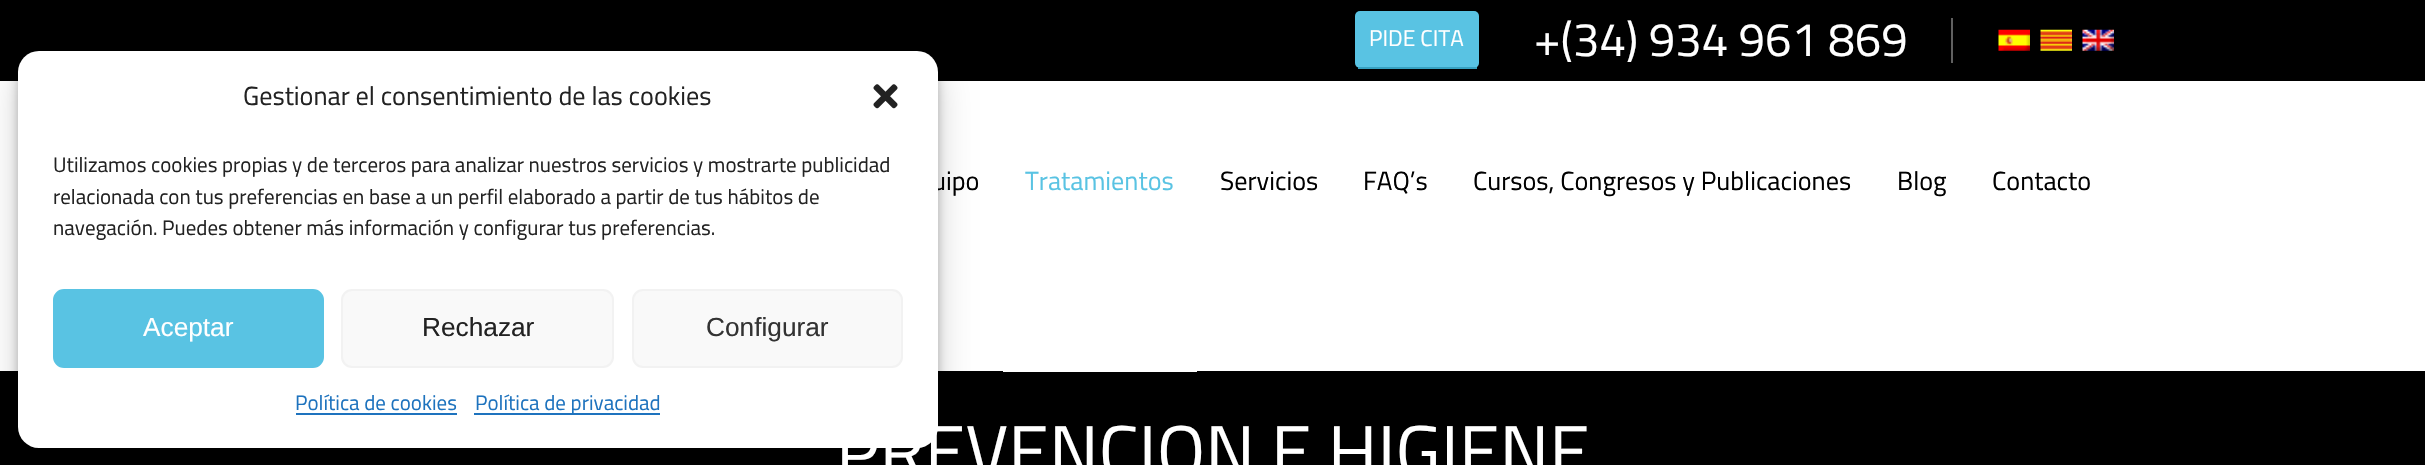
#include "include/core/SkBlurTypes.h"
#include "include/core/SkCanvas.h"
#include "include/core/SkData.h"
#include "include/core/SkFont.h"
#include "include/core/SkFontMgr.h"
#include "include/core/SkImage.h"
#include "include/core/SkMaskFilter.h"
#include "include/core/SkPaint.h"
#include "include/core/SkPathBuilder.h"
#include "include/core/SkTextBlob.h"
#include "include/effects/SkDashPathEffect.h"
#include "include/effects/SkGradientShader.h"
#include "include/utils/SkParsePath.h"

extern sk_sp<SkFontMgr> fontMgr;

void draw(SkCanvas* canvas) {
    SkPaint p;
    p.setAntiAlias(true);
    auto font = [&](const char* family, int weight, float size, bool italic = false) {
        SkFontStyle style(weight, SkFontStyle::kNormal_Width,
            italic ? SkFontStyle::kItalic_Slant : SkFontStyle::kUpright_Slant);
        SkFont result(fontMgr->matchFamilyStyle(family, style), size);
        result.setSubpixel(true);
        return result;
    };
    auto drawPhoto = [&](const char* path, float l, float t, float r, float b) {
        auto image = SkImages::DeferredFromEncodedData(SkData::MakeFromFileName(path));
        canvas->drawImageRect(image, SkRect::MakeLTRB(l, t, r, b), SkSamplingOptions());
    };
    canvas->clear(0xFF000000);
    p.setColor(0xFFFFFFFF);
    canvas->drawRect(SkRect::MakeLTRB(0, 81, 2425, 371), p);
    p.setColor(0x3B000000);
    p.setMaskFilter(SkMaskFilter::MakeBlur(kNormal_SkBlurStyle, 5));
    canvas->drawRoundRect(SkRect::MakeLTRB(18, 61, 938, 459), 21, 21, p);
    p.setMaskFilter(nullptr);
    p.setColor(0x30000000);
    p.setMaskFilter(SkMaskFilter::MakeBlur(kNormal_SkBlurStyle, 17.5f));
    canvas->drawRoundRect(SkRect::MakeLTRB(18, 68, 938, 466), 21, 21, p);
    p.setMaskFilter(nullptr);
    auto font1 = font("Titillium Web", 400, 26.25f);
    p.setColor(0xFF000000);
    canvas->drawString("uipo", 932, 190, font1, p);
    p.setColor(0xFFFFFFFF);
    canvas->drawRoundRect(SkRect::MakeLTRB(18, 51, 938, 448), 21, 21, p);
    p.setColor(0xFF222222);
    canvas->drawString("Gestionar el consentimiento de las cookies", 243, 105, font1, p);
    drawPhoto("media/1.png", 873, 84, 898, 109);
    auto font2 = font("Titillium Web", 400, 21);
    {
        const struct { const char* s; float x, y; } items[] = {
            {"Utilizamos cookies propias y de terceros para analizar nuestros servicios y mostrarte publicidad", 53, 172},
            {"relacionada con tus preferencias en base a un perfil elaborado a partir de tus hábitos de", 53, 204},
            {"navegación. Puedes obtener más información y configurar tus preferencias.", 53, 235},
        };
        for (auto [s, x, y] : items) {
            canvas->drawString(s, x, y, font2, p);
        }
    }
    p.setColor(0xFF59C3E3);
    canvas->drawRoundRect(SkRect::MakeLTRB(54, 290, 323, 367), 10, 10, p);
    p.setStyle(SkPaint::kStroke_Style);
    p.setStrokeWidth(2);
    canvas->drawRoundRect(SkRect::MakeLTRB(54, 290, 323, 367), 10, 10, p);
    auto font3 = font("Liberation Sans", 400, 26.25f);
    p.setStyle(SkPaint::kFill_Style);
    p.setColor(0xFFFFFFFF);
    canvas->drawString("Aceptar", 143, 336, font3, p);
    p.setColor(0xFFF9F9F9);
    canvas->drawRoundRect(SkRect::MakeLTRB(342, 290, 613, 367), 10, 10, p);
    p.setStyle(SkPaint::kStroke_Style);
    p.setColor(0xFFF2F2F2);
    canvas->drawRoundRect(SkRect::MakeLTRB(342, 290, 613, 367), 10, 10, p);
    p.setStyle(SkPaint::kFill_Style);
    p.setColor(0xFF222222);
    canvas->drawString("Rechazar", 422, 336, font3, p);
    p.setColor(0xFFF9F9F9);
    canvas->drawRoundRect(SkRect::MakeLTRB(633, 290, 902, 367), 10, 10, p);
    p.setStyle(SkPaint::kStroke_Style);
    p.setColor(0xFFF2F2F2);
    canvas->drawRoundRect(SkRect::MakeLTRB(633, 290, 902, 367), 10, 10, p);
    p.setStyle(SkPaint::kFill_Style);
    p.setColor(0xFF333333);
    canvas->drawString("Configurar", 706, 336, font3, p);
    p.setColor(0xFF1E73BE);
    canvas->drawString("Política de cookies", 295, 410, font2, p);
    canvas->drawRect(SkRect::MakeLTRB(296, 413, 457, 415), p);
    canvas->drawRect(SkRect::MakeLTRB(474, 413, 660, 415), p);
    canvas->drawString("Política de privacidad", 475, 410, font2, p);
    p.setColor(0xFF59C3E3);
    canvas->drawRoundRect(SkRect::MakeLTRB(1355, 11, 1479, 68), 5, 5, p);
    p.setColor(0xFF37A1C1);
    canvas->drawRect(SkRect::MakeLTRB(1358, 67, 1477, 69), p);
    auto font4 = font("Titillium Web", 400, 22.75f);
    p.setColor(0xFFFFFFFF);
    canvas->drawString("PIDE CITA", 1369, 46, font4, p);
    auto font5 = font("Titillium Web", 400, 47.25f);
    canvas->drawString("+(34) 934 961 869", 1534, 56, font5, p);
    p.setColor(0xFF606060);
    canvas->drawRect(SkRect::MakeLTRB(1951, 18, 1953, 63), p);
    drawPhoto("media/2.png", 1998, 29, 2030, 51);
    drawPhoto("media/3.png", 2040, 29, 2072, 51);
    drawPhoto("media/4.png", 2082, 29, 2114, 51);
    p.setColor(0xFF59C3E3);
    canvas->drawString("Tratamientos", 1025, 190, font1, p);
    p.setColor(0xFFFFFFFF);
    canvas->drawRect(SkRect::MakeLTRB(1003, 371, 1197, 372), p);
    p.setColor(0xFF000000);
    {
        const struct { const char* s; float x, y; } items[] = {
            {"Servicios", 1220, 190},
            {"FAQ’s", 1363, 190},
            {"Cursos, Congresos y Publicaciones", 1473, 190},
            {"Blog", 1897, 190},
            {"Contacto", 1992, 190},
        };
        for (auto [s, x, y] : items) {
            canvas->drawString(s, x, y, font1, p);
        }
    }
    auto font6 = font("Titillium Web", 400, 73.5f);
    p.setColor(0xFFFFFFFF);
    canvas->drawString("PREVENCION E HIGIENE", 836, 477, font6, p);
}
